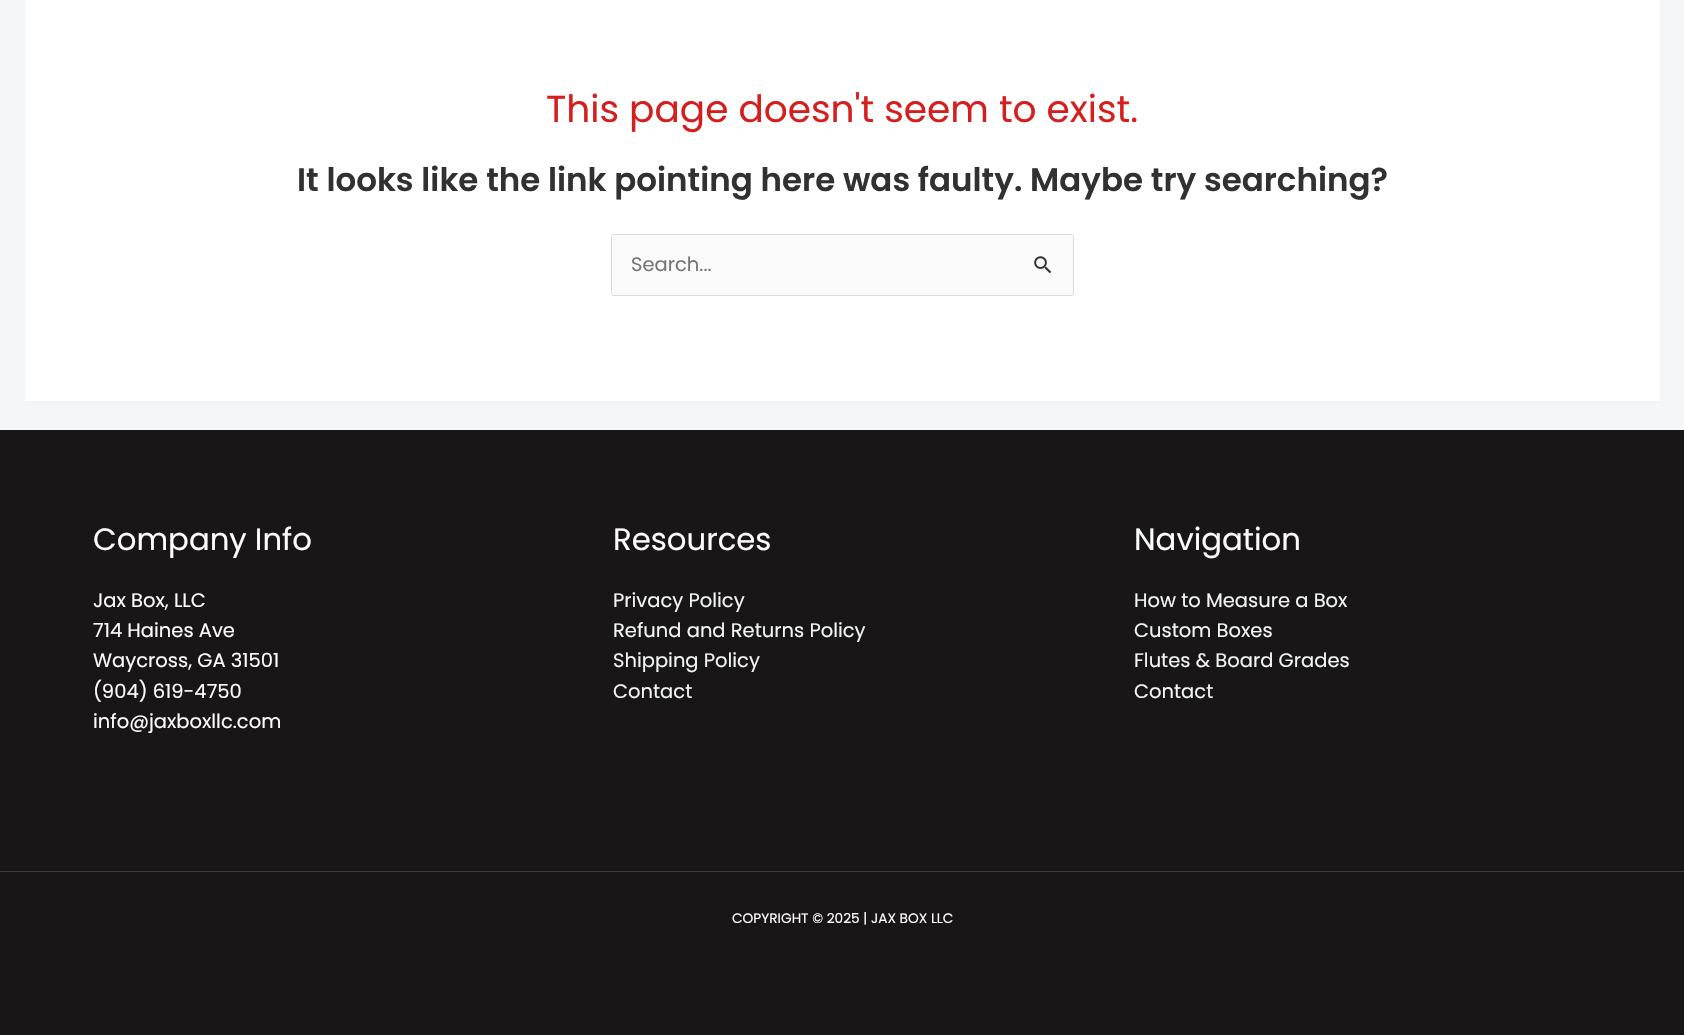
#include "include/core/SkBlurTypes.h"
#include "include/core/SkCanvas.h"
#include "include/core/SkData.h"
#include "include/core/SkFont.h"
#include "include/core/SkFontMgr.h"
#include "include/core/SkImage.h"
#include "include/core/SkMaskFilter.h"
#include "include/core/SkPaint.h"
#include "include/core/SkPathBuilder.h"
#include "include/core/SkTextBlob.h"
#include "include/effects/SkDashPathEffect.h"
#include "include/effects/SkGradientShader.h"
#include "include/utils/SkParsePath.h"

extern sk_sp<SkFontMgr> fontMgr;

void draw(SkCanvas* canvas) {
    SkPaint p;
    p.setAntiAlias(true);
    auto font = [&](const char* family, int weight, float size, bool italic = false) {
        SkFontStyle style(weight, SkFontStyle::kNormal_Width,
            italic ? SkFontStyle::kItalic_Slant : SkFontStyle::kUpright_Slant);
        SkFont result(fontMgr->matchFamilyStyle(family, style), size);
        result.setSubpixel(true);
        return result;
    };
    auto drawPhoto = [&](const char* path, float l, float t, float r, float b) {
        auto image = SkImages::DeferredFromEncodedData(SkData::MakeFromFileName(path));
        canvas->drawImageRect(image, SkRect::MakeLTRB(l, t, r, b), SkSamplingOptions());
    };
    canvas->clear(0xFFF4F5F6);
    p.setColor(0xFFFFFFFF);
    canvas->drawRect(SkRect::MakeLTRB(25, 0, 1660, 401), p);
    auto font1 = font("Poppins", 400, 37.5f);
    p.setColor(0xFFD51F1F);
    canvas->drawString("This page doesn't seem to exist.", 546, 122, font1, p);
    auto font2 = font("Poppins", 600, 32.5f);
    p.setColor(0xFF313131);
    canvas->drawString("It looks like the link pointing here was faulty. Maybe try searching?", 297, 191, font2, p);
    p.setColor(0xFFFAFAFA);
    canvas->drawRoundRect(SkRect::MakeLTRB(611.5f, 234.5f, 1073.5f, 295.5f), 2, 2, p);
    p.setStyle(SkPaint::kStroke_Style);
    p.setStrokeWidth(1);
    p.setColor(0xFFDDDDDD);
    canvas->drawRoundRect(SkRect::MakeLTRB(611.5f, 234.5f, 1073.5f, 295.5f), 2, 2, p);
    auto font3 = font("Poppins", 400, 19.5f);
    p.setStyle(SkPaint::kFill_Style);
    p.setColor(0xFF757575);
    canvas->drawString("Search...", 631, 271, font3, p);
    drawPhoto("media/1.png", 1034, 256, 1052, 274);
    p.setColor(0xFF181616);
    canvas->drawRect(SkRect::MakeLTRB(0, 430, 1684, 1035), p);
    auto font4 = font("Poppins", 400, 30.75f);
    p.setColor(0xFFFFFFFF);
    canvas->drawString("Company Info", 93, 550, font4, p);
    {
        const struct { const char* s; float x, y; } items[] = {
            {"Jax Box, LLC", 93, 607},
            {"714 Haines Ave", 93, 637},
            {"Waycross, GA 31501", 93, 667},
            {"(904) 619-4750", 93, 698},
            {"info@jaxboxllc.com", 93, 728},
        };
        for (auto [s, x, y] : items) {
            canvas->drawString(s, x, y, font3, p);
        }
    }
    canvas->drawString("Resources", 613, 550, font4, p);
    p.setColor(0xFFF4F5F6);
    {
        const struct { const char* s; float x, y; } items[] = {
            {"Privacy Policy", 613, 607},
            {"Refund and Returns Policy", 613, 637},
            {"Shipping Policy", 613, 667},
            {"Contact", 613, 698},
        };
        for (auto [s, x, y] : items) {
            canvas->drawString(s, x, y, font3, p);
        }
    }
    p.setColor(0xFFFFFFFF);
    canvas->drawString("Navigation", 1134, 550, font4, p);
    p.setColor(0xFFF4F5F6);
    {
        const struct { const char* s; float x, y; } items[] = {
            {"How to Measure a Box", 1134, 607},
            {"Custom Boxes", 1134, 637},
            {"Flutes & Board Grades", 1134, 667},
            {"Contact", 1134, 698},
        };
        for (auto [s, x, y] : items) {
            canvas->drawString(s, x, y, font3, p);
        }
    }
    p.setColor(0xFF3F3F3F);
    canvas->drawRect(SkRect::MakeLTRB(0, 871, 1684, 872), p);
    auto font5 = font("Poppins", 400, 13.7f);
    p.setColor(0xFFFFFFFF);
    canvas->drawString("COPYRIGHT © 2025 | JAX BOX LLC", 732, 923, font5, p);
}
